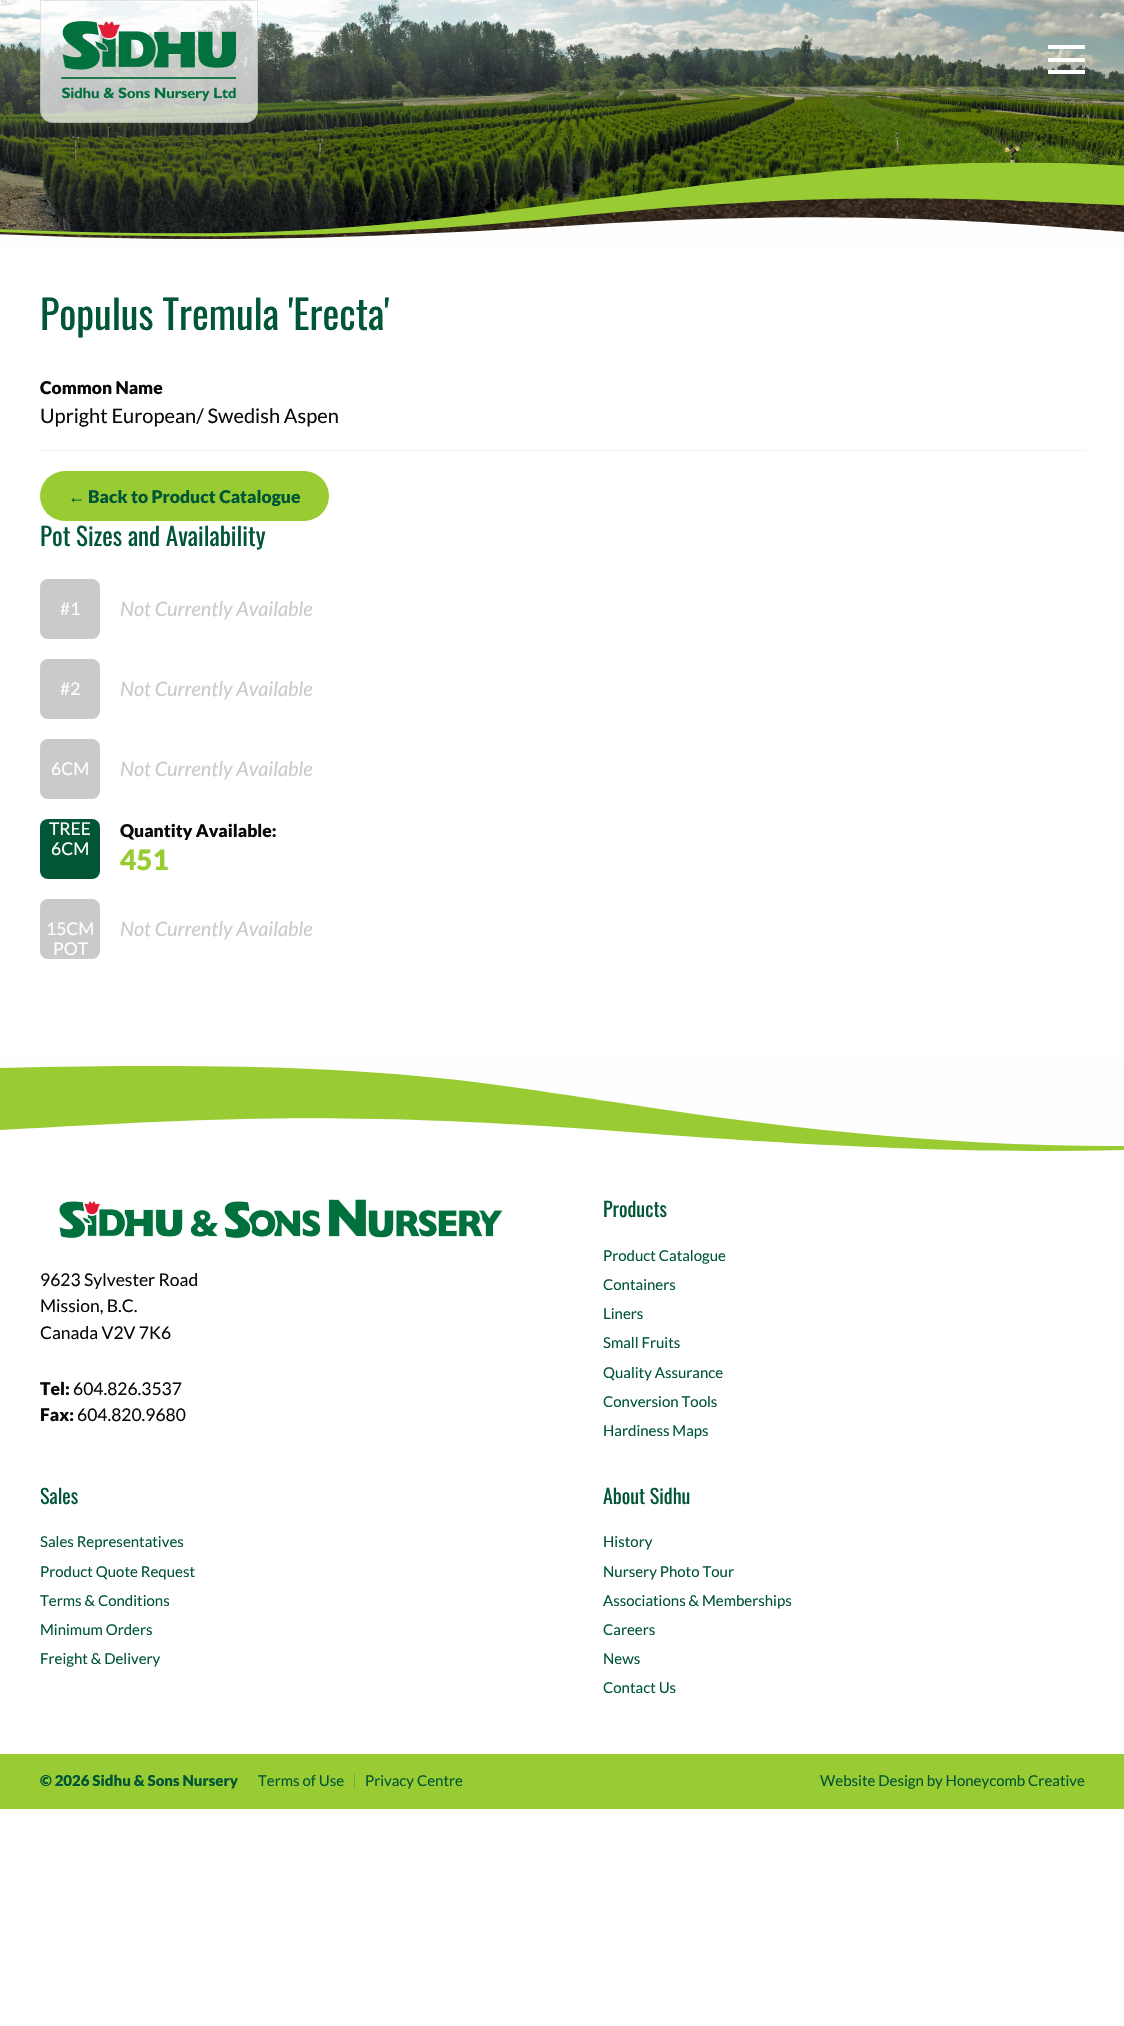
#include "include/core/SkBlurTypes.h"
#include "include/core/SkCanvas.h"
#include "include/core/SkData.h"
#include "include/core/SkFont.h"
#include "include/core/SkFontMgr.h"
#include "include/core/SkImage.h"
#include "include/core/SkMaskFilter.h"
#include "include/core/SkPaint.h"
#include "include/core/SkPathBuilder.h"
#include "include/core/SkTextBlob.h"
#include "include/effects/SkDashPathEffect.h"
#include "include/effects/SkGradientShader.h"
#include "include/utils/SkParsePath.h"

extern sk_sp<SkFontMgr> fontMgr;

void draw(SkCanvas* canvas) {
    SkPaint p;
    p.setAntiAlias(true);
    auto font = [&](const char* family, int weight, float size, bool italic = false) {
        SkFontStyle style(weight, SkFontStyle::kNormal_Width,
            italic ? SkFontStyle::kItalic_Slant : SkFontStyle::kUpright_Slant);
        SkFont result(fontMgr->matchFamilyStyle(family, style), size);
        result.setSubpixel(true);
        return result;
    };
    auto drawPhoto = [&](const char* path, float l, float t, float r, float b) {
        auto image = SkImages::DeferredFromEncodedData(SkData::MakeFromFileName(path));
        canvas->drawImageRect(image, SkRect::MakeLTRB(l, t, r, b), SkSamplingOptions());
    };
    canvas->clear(0xFFFFFFFF);
    drawPhoto("media/2.png", 0, 0, 1124, 237);
    p.setColor(0xB3FEFEFE);
    canvas->drawPath(SkPathBuilder().moveTo(40, 0).lineTo(258, 0).lineTo(258, 110).cubicTo(258, 117, 252, 123, 245, 123).lineTo(53, 123).cubicTo(46, 123, 40, 117, 40, 110).close().detach(), p);
    p.setStyle(SkPaint::kStroke_Style);
    p.setStrokeWidth(1);
    p.setColor(0x1A0A0A0A);
    canvas->drawPath(SkPathBuilder().moveTo(40.5f, 0.5f).lineTo(257.5f, 0.5f).lineTo(257.5f, 110).cubicTo(257.5f, 117, 252, 122.5f, 245, 122.5f).lineTo(53, 122.5f).cubicTo(46, 122.5f, 40.5f, 117, 40.5f, 110).close().detach(), p);
    drawPhoto("media/1.png", 61, 21, 236, 101);
    p.setStyle(SkPaint::kFill_Style);
    {
        const struct { float l, t, r, b; SkColor color; } items[] = {
            {1048, 45, 1085, 49, 0xFFFEFEFE},
            {1048, 58, 1085, 62, 0xFFFEFEFE},
            {1048, 70, 1085, 74, 0xFFFEFEFE},
        };
        for (auto [l, t, r, b, color] : items) {
            p.setColor(color);
            canvas->drawRect(SkRect::MakeLTRB(l, t, r, b), p);
        }
    }
    drawPhoto("media/3.png", 0, 162, 1124, 250);
    auto font1 = font("Oswald", 400, 40);
    p.setColor(0xFF015635);
    canvas->drawString("Populus Tremula 'Erecta'", 40, 330, font1, p);
    p.setColor(0xFFF1F1F1);
    canvas->drawRect(SkRect::MakeLTRB(40, 450, 1085, 451), p);
    auto font2 = font("Lato", 900, 17.5f);
    p.setColor(0xFF0A0A0A);
    canvas->drawString("Common Name", 40, 394, font2, p);
    auto font3 = font("Lato", 400, 20);
    canvas->drawString("Upright European/ Swedish Aspen", 40, 423, font3, p);
    p.setColor(0xFF99CC33);
    canvas->drawRoundRect(SkRect::MakeLTRB(40, 471, 329, 521), 25, 25, p);
    auto font4 = font("Liberation Sans", 700, 17.5f);
    p.setColor(0xFF015635);
    canvas->drawString("←", 68, 503, font4, p);
    canvas->drawString("Back to Product Catalogue", 88, 503, font2, p);
    auto font5 = font("Oswald", 400, 25);
    canvas->drawString("Pot Sizes and Availability", 40, 546, font5, p);
    p.setColor(0xFFCACACA);
    canvas->drawRoundRect(SkRect::MakeLTRB(40, 579, 100, 639), 8, 8, p);
    auto font6 = font("Lato", 400, 17.5f);
    p.setColor(0xFFFEFEFE);
    canvas->drawString("#1", 60, 615, font6, p);
    auto font7 = font("Lato", 400, 20, true);
    p.setColor(0xFFCACACA);
    canvas->drawString("Not Currently Available", 120, 616, font7, p);
    canvas->drawRoundRect(SkRect::MakeLTRB(40, 659, 100, 719), 8, 8, p);
    p.setColor(0xFFFEFEFE);
    canvas->drawString("#2", 60, 695, font6, p);
    p.setColor(0xFFCACACA);
    canvas->drawString("Not Currently Available", 120, 696, font7, p);
    canvas->drawRoundRect(SkRect::MakeLTRB(40, 739, 100, 799), 8, 8, p);
    p.setColor(0xFFFEFEFE);
    canvas->drawString("6CM", 51, 775, font6, p);
    p.setColor(0xFF015635);
    canvas->drawRoundRect(SkRect::MakeLTRB(40, 819, 100, 879), 8, 8, p);
    p.setColor(0xFFFEFEFE);
    canvas->drawString("TREE", 49, 835, font6, p);
    p.setColor(0xFFCACACA);
    canvas->drawRoundRect(SkRect::MakeLTRB(40, 899, 100, 959), 8, 8, p);
    p.setColor(0xFFFEFEFE);
    canvas->drawString("POT", 53, 955, font6, p);
    p.setColor(0xFFCACACA);
    canvas->drawString("Not Currently Available", 120, 776, font7, p);
    p.setColor(0xFFFEFEFE);
    canvas->drawString("6CM", 51, 855, font6, p);
    p.setColor(0xFF0A0A0A);
    canvas->drawString("Quantity Available:", 120, 837, font2, p);
    auto font8 = font("Lato", 900, 28);
    p.setColor(0xFF99CC33);
    canvas->drawString("451", 120, 870, font8, p);
    p.setColor(0xFFFEFEFE);
    canvas->drawString("15CM", 46, 935, font6, p);
    p.setColor(0xFFCACACA);
    canvas->drawString("Not Currently Available", 120, 936, font7, p);
    p.setColor(0xFF99CC33);
    canvas->drawPath(SkPathBuilder().moveTo(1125, 1150).cubicTo(937, 1155, 733, 1140, 615, 1131).cubicTo(330, 1110, 209, 1119, 0, 1130).lineTo(0, 1059).lineTo(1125, 1059).detach(), p);
    p.setColor(0xFFFEFEFE);
    canvas->drawPath(SkPathBuilder().moveTo(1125, 1146).cubicTo(947, 1147, 763, 1126, 614, 1102).cubicTo(475, 1082, 378, 1059, 0, 1068).lineTo(0, 1059).lineTo(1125, 1059).close().detach(), p);
    drawPhoto("media/4.png", 59, 1199, 504, 1239);
    p.setColor(0xFF0A0A0A);
    {
        const struct { const char* s; float x, y; } items[] = {
            {"9623 Sylvester Road", 40, 1286},
            {"Mission, B.C.", 40, 1312},
            {"Canada V2V 7K6", 40, 1339},
        };
        for (auto [s, x, y] : items) {
            canvas->drawString(s, x, y, font6, p);
        }
    }
    canvas->drawString("Tel:", 40, 1395, font2, p);
    canvas->drawString("604.826.3537", 73, 1395, font6, p);
    canvas->drawString("Fax:", 40, 1421, font2, p);
    canvas->drawString("604.820.9680", 77, 1421, font6, p);
    auto font9 = font("Oswald", 400, 20);
    p.setColor(0xFF015635);
    canvas->drawString("Products", 603, 1217, font9, p);
    auto font10 = font("Lato", 400, 15);
    {
        const struct { const char* s; float x, y; } items[] = {
            {"Product Catalogue", 603, 1261},
            {"Containers", 603, 1290},
            {"Liners", 603, 1319},
            {"Small Fruits", 603, 1348},
            {"Quality Assurance", 603, 1378},
            {"Conversion Tools", 603, 1407},
            {"Hardiness Maps", 603, 1436},
        };
        for (auto [s, x, y] : items) {
            canvas->drawString(s, x, y, font10, p);
        }
    }
    canvas->drawString("Sales", 40, 1504, font9, p);
    {
        const struct { const char* s; float x, y; } items[] = {
            {"Sales Representatives", 40, 1547},
            {"Product Quote Request", 40, 1577},
            {"Terms & Conditions", 40, 1606},
            {"Minimum Orders", 40, 1635},
            {"Freight & Delivery", 40, 1664},
        };
        for (auto [s, x, y] : items) {
            canvas->drawString(s, x, y, font10, p);
        }
    }
    canvas->drawString("About Sidhu", 603, 1504, font9, p);
    {
        const struct { const char* s; float x, y; } items[] = {
            {"History", 603, 1547},
            {"Nursery Photo Tour", 603, 1577},
            {"Associations & Memberships", 603, 1606},
            {"Careers", 603, 1635},
            {"News", 603, 1664},
            {"Contact Us", 603, 1693},
        };
        for (auto [s, x, y] : items) {
            canvas->drawString(s, x, y, font10, p);
        }
    }
    p.setColor(0xFF99CC33);
    canvas->drawRect(SkRect::MakeLTRB(0, 1754, 1124, 1809), p);
    auto font11 = font("Lato", 900, 15);
    p.setColor(0xFF015635);
    canvas->drawString("© 2026 Sidhu & Sons Nursery", 40, 1786, font11, p);
    canvas->drawString("Terms of Use", 258, 1786, font10, p);
    p.setColor(0xFF73AF34);
    canvas->drawRect(SkRect::MakeLTRB(354, 1774, 355, 1789), p);
    p.setColor(0xFF015635);
    canvas->drawString("Privacy Centre", 365, 1786, font10, p);
    canvas->drawString("Website Design by Honeycomb Creative", 820, 1786, font10, p);
}
